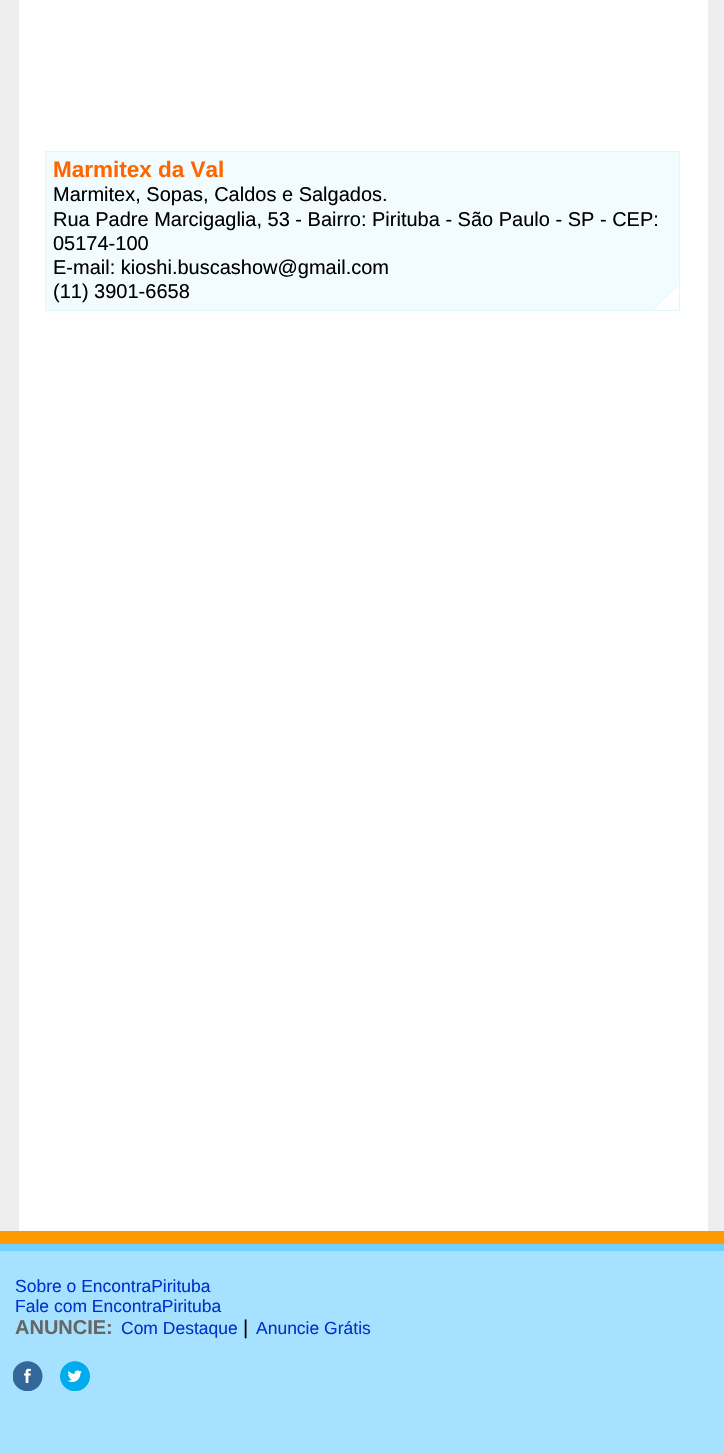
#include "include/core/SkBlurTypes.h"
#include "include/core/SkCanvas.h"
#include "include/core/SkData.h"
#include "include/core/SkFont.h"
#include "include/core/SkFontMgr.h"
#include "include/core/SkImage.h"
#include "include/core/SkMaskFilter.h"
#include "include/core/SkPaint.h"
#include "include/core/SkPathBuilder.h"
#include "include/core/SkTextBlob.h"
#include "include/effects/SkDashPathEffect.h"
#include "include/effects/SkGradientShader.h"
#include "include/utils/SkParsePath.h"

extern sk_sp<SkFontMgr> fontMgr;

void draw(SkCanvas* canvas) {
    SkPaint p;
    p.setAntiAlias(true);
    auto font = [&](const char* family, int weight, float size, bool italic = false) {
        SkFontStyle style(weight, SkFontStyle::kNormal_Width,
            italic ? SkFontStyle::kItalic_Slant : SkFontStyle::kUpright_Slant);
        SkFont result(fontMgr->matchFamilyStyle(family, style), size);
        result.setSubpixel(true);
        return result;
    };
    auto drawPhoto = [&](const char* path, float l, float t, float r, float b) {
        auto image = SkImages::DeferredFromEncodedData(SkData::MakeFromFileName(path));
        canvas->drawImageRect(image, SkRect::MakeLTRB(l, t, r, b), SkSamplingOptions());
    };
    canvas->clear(0xFFFF9900);
    {
        const struct { float l, t, r, b; SkColor color; } items[] = {
            {0, 0, 724, 1231, 0xFFEEEEEE},
            {19, 0, 708, 1231, 0xFFFFFFFF},
            {46, 152, 679, 310, 0xFFF2FCFF},
        };
        for (auto [l, t, r, b, color] : items) {
            p.setColor(color);
            canvas->drawRect(SkRect::MakeLTRB(l, t, r, b), p);
        }
    }
    drawPhoto("media/1.png", 652, 284, 679, 310);
    p.setStyle(SkPaint::kStroke_Style);
    p.setStrokeWidth(1);
    p.setColor(0xFFDFF8FF);
    canvas->drawRect(SkRect::MakeLTRB(45.5f, 151.5f, 679.5f, 310.5f), p);
    auto font1 = font("Liberation Sans", 700, 22.5f);
    p.setStyle(SkPaint::kFill_Style);
    p.setColor(0xFFFF6600);
    canvas->drawString("Marmitex da Val", 53, 177, font1, p);
    auto font2 = font("Liberation Sans", 400, 20);
    p.setColor(0xFF000000);
    {
        const struct { const char* s; float x, y; } items[] = {
            {"Marmitex, Sopas, Caldos e Salgados.", 53, 201},
            {"Rua Padre Marcigaglia, 53 - Bairro: Pirituba - São Paulo - SP - CEP:", 53, 226},
            {"05174-100", 53, 250},
            {"E-mail: kioshi.buscashow@gmail.com", 53, 274},
            {"(11) 3901-6658", 53, 298},
        };
        for (auto [s, x, y] : items) {
            canvas->drawString(s, x, y, font2, p);
        }
    }
    p.setColor(0xFF71D0FF);
    canvas->drawRect(SkRect::MakeLTRB(0, 1244, 724, 1251), p);
    p.setColor(0xFFA6E2FF);
    canvas->drawRect(SkRect::MakeLTRB(0, 1251, 724, 1454), p);
    auto font3 = font("Liberation Sans", 400, 17.5f);
    p.setColor(0xFF0033CC);
    canvas->drawString("Sobre o EncontraPirituba", 15, 1292, font3, p);
    canvas->drawString("Fale com EncontraPirituba", 15, 1312, font3, p);
    auto font4 = font("Liberation Sans", 700, 20);
    p.setColor(0xFF666666);
    canvas->drawString("ANUNCIE:", 15, 1334, font4, p);
    p.setColor(0xFF0033CC);
    canvas->drawString("Com Destaque", 121, 1334, font3, p);
    p.setColor(0xFF000000);
    canvas->drawString("|", 243, 1334, font2, p);
    p.setColor(0xFF0033CC);
    canvas->drawString("Anuncie Grátis", 256, 1334, font3, p);
    drawPhoto("media/2.png", 13, 1361, 43, 1391);
    drawPhoto("media/3.png", 60, 1361, 90, 1391);
}
